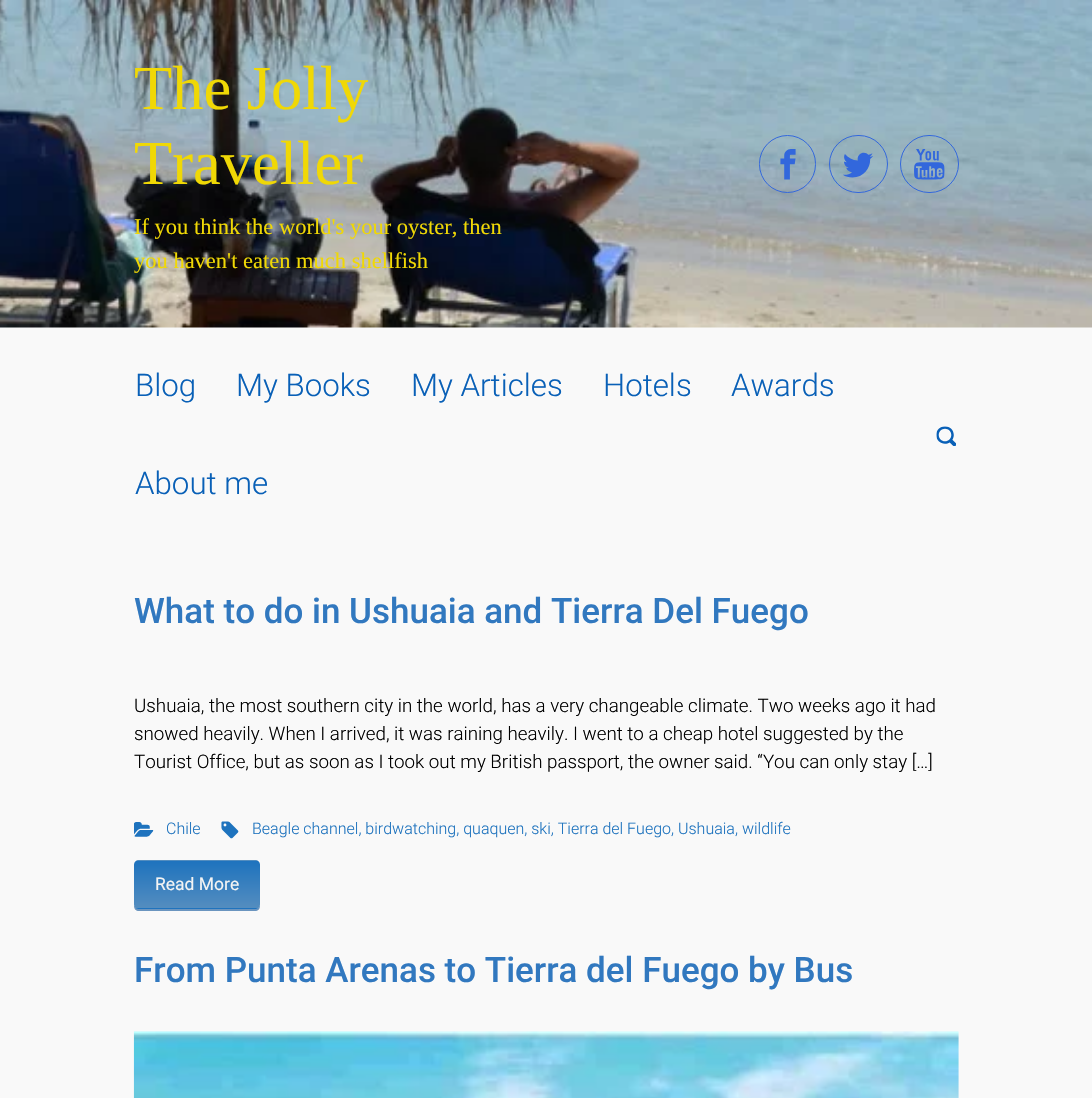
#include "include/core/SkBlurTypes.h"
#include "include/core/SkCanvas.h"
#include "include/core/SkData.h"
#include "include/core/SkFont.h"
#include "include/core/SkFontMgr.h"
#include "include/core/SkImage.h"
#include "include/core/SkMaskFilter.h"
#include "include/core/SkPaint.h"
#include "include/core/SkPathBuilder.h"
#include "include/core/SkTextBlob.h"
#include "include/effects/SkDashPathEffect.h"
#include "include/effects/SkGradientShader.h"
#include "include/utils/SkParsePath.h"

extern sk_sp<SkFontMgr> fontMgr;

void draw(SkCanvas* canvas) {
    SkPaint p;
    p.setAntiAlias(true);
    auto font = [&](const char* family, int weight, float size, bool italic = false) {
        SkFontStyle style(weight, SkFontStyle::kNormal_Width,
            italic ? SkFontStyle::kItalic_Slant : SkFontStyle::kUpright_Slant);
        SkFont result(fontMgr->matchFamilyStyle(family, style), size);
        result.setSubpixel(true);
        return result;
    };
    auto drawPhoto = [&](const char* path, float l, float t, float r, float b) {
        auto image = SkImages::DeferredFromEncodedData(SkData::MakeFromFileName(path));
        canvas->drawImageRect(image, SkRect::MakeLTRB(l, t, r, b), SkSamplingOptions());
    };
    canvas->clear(0xFFF9F9F9);
    drawPhoto("media/1.png", 0, 0, 1092, 328);
    auto font1 = font("Liberation Serif", 400, 62.5f);
    p.setColor(0xFFF0D805);
    canvas->drawString("The Jolly", 134, 109, font1, p);
    canvas->drawString("Traveller", 134, 184, font1, p);
    auto font2 = font("Liberation Serif", 400, 22.5f);
    canvas->drawString("If you think the world's your oyster, then", 134, 234, font2, p);
    canvas->drawString("you haven't eaten much shellfish", 134, 268, font2, p);
    p.setStyle(SkPaint::kStroke_Style);
    p.setStrokeWidth(1);
    p.setColor(0xFF3267DC);
    canvas->drawRoundRect(SkRect::MakeLTRB(759.5f, 135.5f, 815.5f, 192.5f), 28, 28, p);
    drawPhoto("media/2.png", 780, 149, 796, 180);
    canvas->drawRoundRect(SkRect::MakeLTRB(829.5f, 135.5f, 887.5f, 192.5f), 28.5f, 28.5f, p);
    drawPhoto("media/3.png", 843, 152, 873, 178);
    canvas->drawRoundRect(SkRect::MakeLTRB(900.5f, 135.5f, 958.5f, 192.5f), 28.5f, 28.5f, p);
    drawPhoto("media/4.png", 914, 149, 945, 180);
    auto font3 = font("Roboto", 300, 31.25f);
    p.setStyle(SkPaint::kFill_Style);
    p.setColor(0xFF0960B7);
    {
        const struct { const char* s; float x, y; } items[] = {
            {"Blog", 135, 396},
            {"My Books", 236, 396},
            {"My Articles", 411, 396},
            {"Hotels", 603, 396},
            {"Awards", 731, 396},
            {"About me", 135, 494},
        };
        for (auto [s, x, y] : items) {
            canvas->drawString(s, x, y, font3, p);
        }
    }
    drawPhoto("media/5.png", 936, 426, 956, 446);
    auto font4 = font("Roboto", 500, 35);
    p.setColor(0xFF3178BF);
    canvas->drawString("What to do in Ushuaia and Tierra Del Fuego", 134, 623, font4, p);
    auto font5 = font("Roboto", 300, 18.75f);
    p.setColor(0xFF000000);
    {
        const struct { const char* s; float x, y; } items[] = {
            {"Ushuaia, the most southern city in the world, has a very changeable climate. Two weeks ago it had", 134, 712},
            {"snowed heavily. When I arrived, it was raining heavily. I went to a cheap hotel suggested by the", 134, 740},
            {"Tourist Office, but as soon as I took out my British passport, the owner said. “You can only stay […]", 134, 768},
        };
        for (auto [s, x, y] : items) {
            canvas->drawString(s, x, y, font5, p);
        }
    }
    drawPhoto("media/6.png", 134, 822, 154, 837);
    auto font6 = font("Roboto", 300, 16);
    p.setColor(0xFF1E73BE);
    canvas->drawString("Chile", 166, 834, font6, p);
    drawPhoto("media/7.png", 221, 821, 239, 839);
    canvas->drawString("Beagle channel, birdwatching, quaquen, ski, Tierra del Fuego, Ushuaia, wildlife", 252, 834, font6, p);
    p.setColor(0xFF6B95BF);
    canvas->drawPath(SkPathBuilder().moveTo(134, 905).lineTo(134, 906).cubicTo(134, 909, 136, 911, 139, 911).lineTo(255, 911).cubicTo(258, 911, 260, 909, 260, 906).lineTo(260, 904).cubicTo(260, 906, 258, 909, 255, 909).lineTo(139, 909).cubicTo(137, 909, 135, 907, 134, 905).close().detach(), p);
    canvas->save();
    canvas->clipPath(SkPathBuilder().moveTo(139, 860).lineTo(255, 860).cubicTo(258, 860, 260, 862, 260, 865).lineTo(260, 904).cubicTo(260, 907, 258, 909, 255, 909).lineTo(139, 909).cubicTo(136, 909, 134, 907, 134, 904).lineTo(134, 865).cubicTo(134, 862, 136, 860, 139, 860).close().detach(), true);
    {
        const SkColor colors[] = {0xFF548DBF, 0xFF1E73BE};
        const float stops[] = {0, 1};
        const SkPoint ends[] = {{197, 861}, {197, 815}};
        p.setShader(SkGradientShader::MakeLinear(ends, colors, stops, 2, SkTileMode::kClamp));
        p.setAlpha(255);
    }
    canvas->drawRect(SkRect::MakeLTRB(134, 860, 260, 861), p);
    {
        const SkColor colors[] = {0xFF548DBF, 0xFF1E73BE};
        const float stops[] = {0, 1};
        const SkPoint ends[] = {{197, 908}, {197, 861}};
        p.setShader(SkGradientShader::MakeLinear(ends, colors, stops, 2, SkTileMode::kClamp));
        p.setAlpha(255);
    }
    canvas->drawRect(SkRect::MakeLTRB(134, 861, 260, 908), p);
    {
        const SkColor colors[] = {0xFF548DBF, 0xFF1E73BE};
        const float stops[] = {0, 1};
        const SkPoint ends[] = {{197, 954}, {197, 908}};
        p.setShader(SkGradientShader::MakeLinear(ends, colors, stops, 2, SkTileMode::kClamp));
        p.setAlpha(255);
    }
    canvas->drawRect(SkRect::MakeLTRB(134, 908, 260, 909), p);
    canvas->restore();
    auto font7 = font("Roboto", 400, 17.5f);
    p.setShader(nullptr);
    p.setColor(0xFFF4F4F4);
    canvas->drawString("Read More", 155, 890, font7, p);
    p.setColor(0xFF3178BF);
    canvas->drawString("From Punta Arenas to Tierra del Fuego by Bus", 134, 982, font4, p);
    drawPhoto("media/8.png", 133, 1031, 959, 1098);
}
